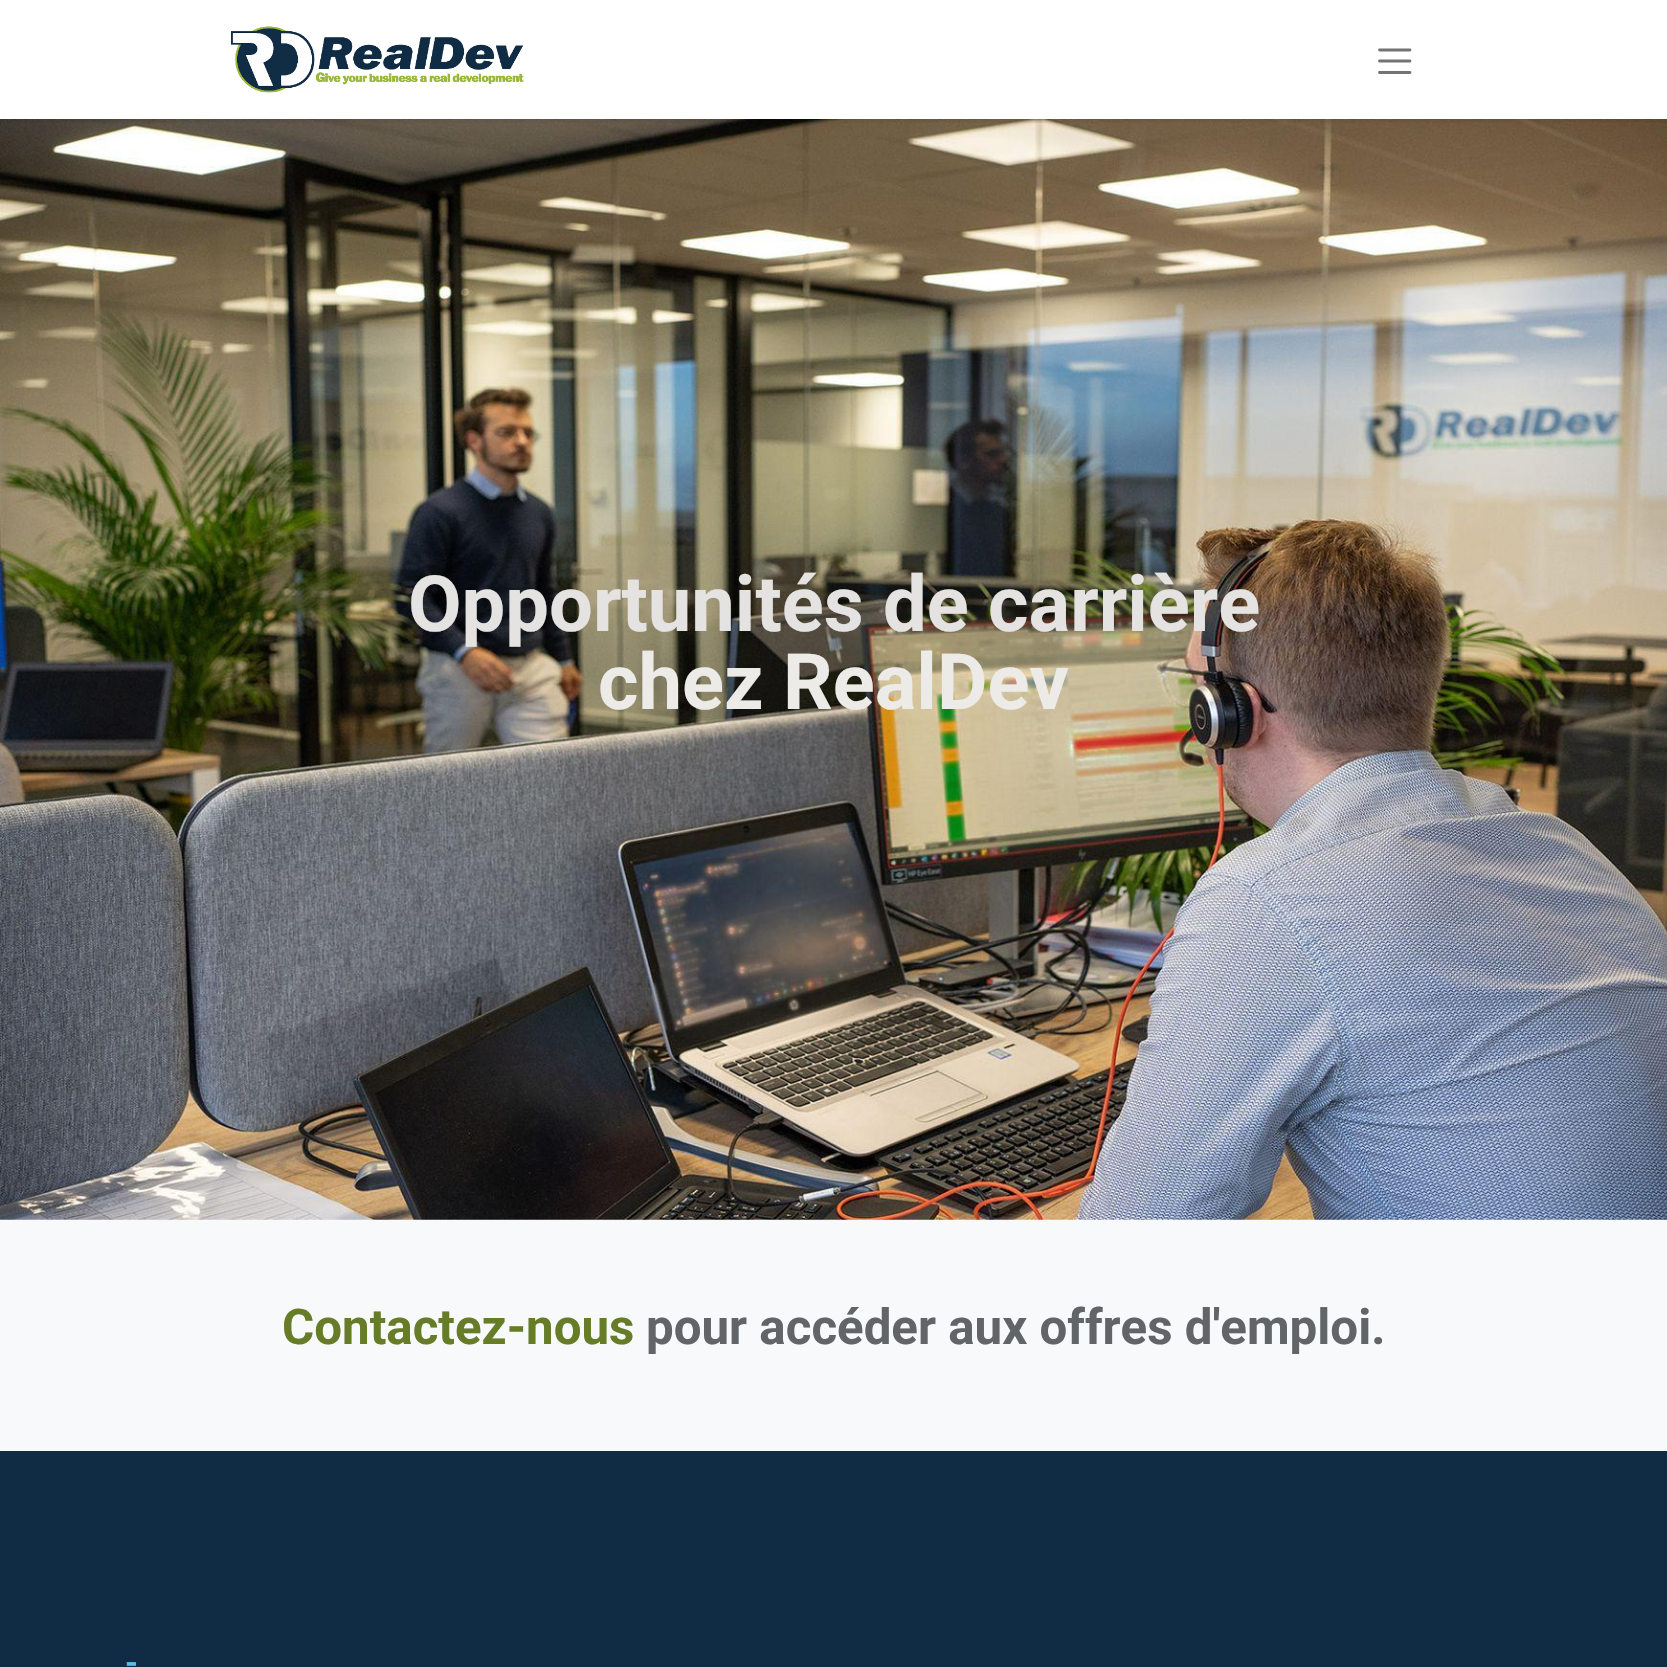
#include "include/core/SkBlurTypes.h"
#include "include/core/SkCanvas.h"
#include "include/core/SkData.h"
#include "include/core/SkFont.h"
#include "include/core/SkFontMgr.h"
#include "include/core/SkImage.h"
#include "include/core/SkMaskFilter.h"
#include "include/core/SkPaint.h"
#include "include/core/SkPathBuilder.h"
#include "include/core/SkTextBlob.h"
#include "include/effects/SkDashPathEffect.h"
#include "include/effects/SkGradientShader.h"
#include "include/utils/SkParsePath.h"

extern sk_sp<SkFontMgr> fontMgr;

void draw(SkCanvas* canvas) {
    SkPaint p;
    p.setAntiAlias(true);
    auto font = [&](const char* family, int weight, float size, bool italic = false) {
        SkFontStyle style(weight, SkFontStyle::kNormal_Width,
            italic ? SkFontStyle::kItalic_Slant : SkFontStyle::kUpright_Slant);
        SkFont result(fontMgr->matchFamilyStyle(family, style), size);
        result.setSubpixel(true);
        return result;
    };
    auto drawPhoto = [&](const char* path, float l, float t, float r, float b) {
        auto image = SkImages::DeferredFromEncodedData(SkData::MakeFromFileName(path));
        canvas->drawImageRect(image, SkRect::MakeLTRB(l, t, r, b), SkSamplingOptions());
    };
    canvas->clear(0xFFFFFFFF);
    p.setColor(0xFFF8F9FA);
    canvas->drawRect(SkRect::MakeLTRB(0, 1219, 1667, 1451), p);
    drawPhoto("media/2.png", 0, 119, 1667, 1220);
    canvas->save();
    canvas->clipRect(SkRect::MakeLTRB(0, 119, 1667, 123));
    p.setColor(0x1A000000);
    p.setMaskFilter(SkMaskFilter::MakeBlur(kNormal_SkBlurStyle, 2.5f));
    canvas->drawRect(SkRect::MakeLTRB(0, 2, 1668, 121), p);
    p.setMaskFilter(nullptr);
    canvas->restore();
    drawPhoto("media/1.png", 231, 26, 524, 93);
    p.setStyle(SkPaint::kStroke_Style);
    p.setStrokeWidth(2.8f);
    p.setStrokeCap(SkPaint::kRound_Cap);
    p.setColor(0xFF737373);
    canvas->drawPath(SkPathBuilder().moveTo(1379.5f, 50).lineTo(1410, 50).moveTo(1379.5f, 61).lineTo(1410, 61).moveTo(1379.5f, 72.5f).lineTo(1410, 72.5f).detach(), p);
    auto font1 = font("Roboto", 700, 77.75f);
    p.setStyle(SkPaint::kFill_Style);
    p.setColor(0xFFE4E3E1);
    canvas->drawString("Opportunités de carrière", 408, 631, font1, p);
    p.setColor(0xFFECEBE7);
    canvas->drawString("chez RealDev", 598, 709, font1, p);
    auto font2 = font("Roboto", 700, 49.25f);
    p.setColor(0xFF667C27);
    canvas->drawString("Contactez-nous", 282, 1344, font2, p);
    p.setColor(0xFF626568);
    canvas->drawString("pour accéder aux offres d'emploi.", 646, 1344, font2, p);
    p.setColor(0xFF102C45);
    canvas->drawRect(SkRect::MakeLTRB(0, 1451, 1667, 1667), p);
    auto font3 = font("Roboto", 700, 33);
    p.setColor(0xFF5ABBE9);
    canvas->drawString("-", 125, 1674, font3, p);
}
